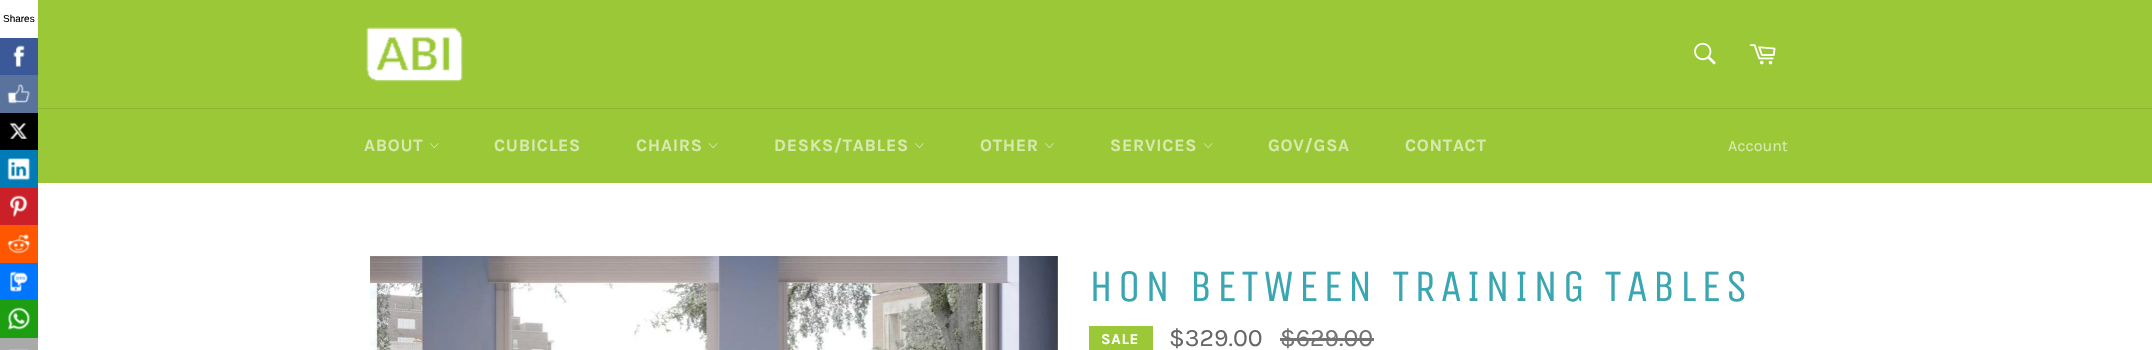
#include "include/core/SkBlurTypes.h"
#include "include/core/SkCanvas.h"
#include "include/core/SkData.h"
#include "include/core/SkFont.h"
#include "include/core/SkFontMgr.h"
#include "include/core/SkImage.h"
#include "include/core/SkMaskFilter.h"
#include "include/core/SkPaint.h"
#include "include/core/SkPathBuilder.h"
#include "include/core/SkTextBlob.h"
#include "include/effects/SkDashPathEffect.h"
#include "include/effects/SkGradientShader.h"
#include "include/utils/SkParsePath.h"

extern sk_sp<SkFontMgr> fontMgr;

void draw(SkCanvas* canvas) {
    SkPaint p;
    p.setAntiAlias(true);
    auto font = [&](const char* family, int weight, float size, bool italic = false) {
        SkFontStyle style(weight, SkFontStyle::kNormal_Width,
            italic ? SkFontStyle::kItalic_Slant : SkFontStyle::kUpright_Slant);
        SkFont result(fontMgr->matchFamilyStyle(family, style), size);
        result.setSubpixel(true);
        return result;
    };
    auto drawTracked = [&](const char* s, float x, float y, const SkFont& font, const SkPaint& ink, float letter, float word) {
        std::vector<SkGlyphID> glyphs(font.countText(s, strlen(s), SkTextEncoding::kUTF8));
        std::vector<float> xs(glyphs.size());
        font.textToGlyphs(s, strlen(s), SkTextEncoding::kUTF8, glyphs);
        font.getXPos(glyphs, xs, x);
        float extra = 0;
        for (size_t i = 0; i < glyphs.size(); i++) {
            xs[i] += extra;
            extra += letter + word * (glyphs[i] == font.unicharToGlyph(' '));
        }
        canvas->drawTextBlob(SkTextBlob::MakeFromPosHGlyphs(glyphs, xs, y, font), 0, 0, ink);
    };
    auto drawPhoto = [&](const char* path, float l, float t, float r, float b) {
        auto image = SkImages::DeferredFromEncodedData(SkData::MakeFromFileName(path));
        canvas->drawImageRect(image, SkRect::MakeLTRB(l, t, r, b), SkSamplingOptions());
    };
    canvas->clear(0xFF9AC836);
    p.setColor(0xFFFFFFFF);
    canvas->drawRect(SkRect::MakeLTRB(0, 0, 38, 38), p);
    auto font1 = font("Liberation Sans", 400, 10);
    p.setColor(0xFF000000);
    canvas->drawString("Shares", 3, 22, font1, p);
    p.setColor(0xFF3B5998);
    canvas->drawRect(SkRect::MakeLTRB(0, 38, 38, 75), p);
    drawPhoto("media/1.png", 13, 45, 25, 67);
    p.setColor(0xFF5A739D);
    canvas->drawRect(SkRect::MakeLTRB(0, 75, 38, 113), p);
    drawPhoto("media/2.png", 7, 84, 31, 104);
    p.setColor(0xFF000000);
    canvas->drawRect(SkRect::MakeLTRB(0, 113, 38, 150), p);
    drawPhoto("media/3.png", 9, 122, 28, 139);
    p.setColor(0xFF007BB6);
    canvas->drawRect(SkRect::MakeLTRB(0, 150, 38, 188), p);
    drawPhoto("media/4.png", 7, 158, 31, 181);
    p.setColor(0xFFCB2027);
    canvas->drawRect(SkRect::MakeLTRB(0, 188, 38, 225), p);
    drawPhoto("media/5.png", 10, 195, 28, 218);
    p.setColor(0xFFFF5700);
    canvas->drawRect(SkRect::MakeLTRB(0, 225, 38, 263), p);
    drawPhoto("media/6.png", 7, 234, 31, 254);
    p.setColor(0xFF0076FF);
    canvas->drawRect(SkRect::MakeLTRB(0, 263, 38, 300), p);
    drawPhoto("media/7.png", 10, 271, 28, 292);
    p.setColor(0xFF1D9E11);
    canvas->drawRect(SkRect::MakeLTRB(0, 300, 38, 338), p);
    drawPhoto("media/8.png", 7, 307, 31, 330);
    p.setColor(0xFFAAAAAA);
    canvas->drawRect(SkRect::MakeLTRB(0, 338, 38, 350), p);
    drawPhoto("media/9.png", 9, 349, 29, 350);
    drawPhoto("media/10.png", 366, 27, 463, 82);
    drawPhoto("media/11.png", 1694, 42, 1716, 65);
    drawPhoto("media/12.png", 1749, 44, 1776, 65);
    p.setColor(0xFF8BB431);
    canvas->drawRect(SkRect::MakeLTRB(38, 108, 2152, 109), p);
    auto font2 = font("Karla", 700, 17.5f);
    p.setColor(0xFFD7E9AF);
    drawTracked("ABOUT", 364, 151, font2, p, 0.75f, 0);
    drawPhoto("media/13.png", 430, 143, 439, 149);
    drawTracked("CUBICLES", 494, 151, font2, p, 0.75f, 0);
    drawTracked("CHAIRS", 636, 151, font2, p, 0.75f, 0);
    drawPhoto("media/14.png", 708, 143, 718, 149);
    drawTracked("DESKS/TABLES", 774, 151, font2, p, 0.75f, 0);
    drawPhoto("media/13.png", 915, 143, 924, 149);
    drawTracked("OTHER", 980, 151, font2, p, 0.75f, 0);
    drawPhoto("media/13.png", 1045, 143, 1054, 149);
    drawTracked("SERVICES", 1110, 151, font2, p, 0.75f, 0);
    drawPhoto("media/14.png", 1203, 143, 1213, 149);
    drawTracked("GOV/GSA", 1268, 151, font2, p, 0.75f, 0);
    drawTracked("CONTACT", 1405, 151, font2, p, 0.75f, 0);
    auto font3 = font("Karla", 400, 16);
    canvas->drawString("Account", 1728, 151, font3, p);
    p.setColor(0xFFFFFFFF);
    canvas->drawRect(SkRect::MakeLTRB(38, 183, 2152, 350), p);
    drawPhoto("media/15.png", 370, 256, 1058, 350);
    auto font4 = font("Unica One", 400, 45);
    p.setColor(0xFF3AA6B1);
    drawTracked("HON BETWEEN TRAINING TABLES", 1089, 301, font4, p, 4.5f, 0);
    p.setColor(0xFF9AC836);
    canvas->drawRect(SkRect::MakeLTRB(1089, 326, 1153, 350), p);
    auto font5 = font("Karla", 700, 15);
    p.setColor(0xFFFFFFFF);
    drawTracked("SALE", 1101, 344, font5, p, 0.75f, 0);
    auto font6 = font("Karla", 400, 25);
    p.setColor(0xFF666666);
    canvas->drawString("$329.00", 1169, 346, font6, p);
    p.setColor(0xFF737373);
    canvas->drawString("$629.00", 1280, 346, font6, p);
    canvas->drawRect(SkRect::MakeLTRB(1280, 338, 1374, 341), p);
}
